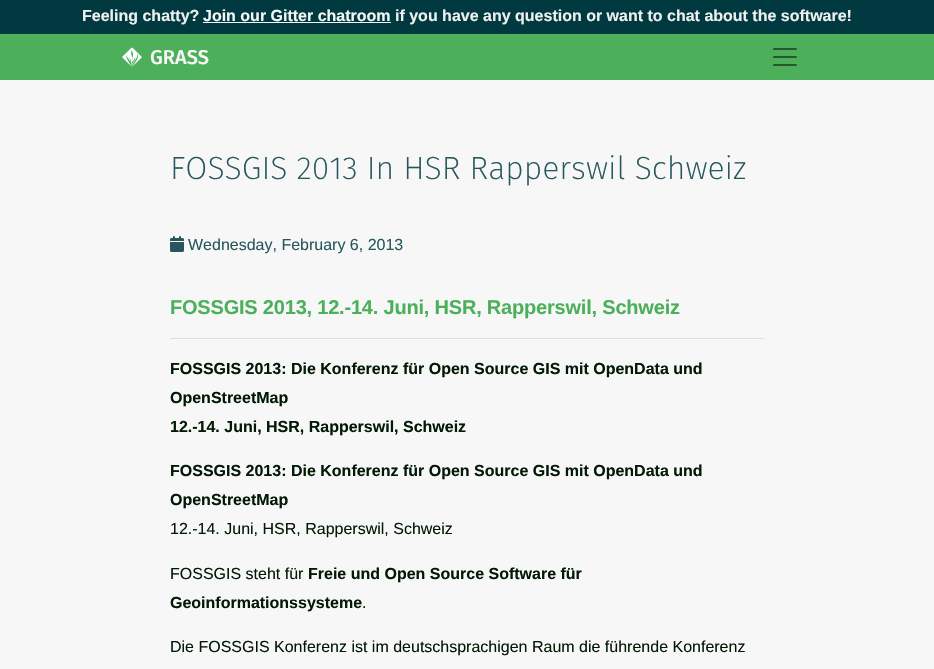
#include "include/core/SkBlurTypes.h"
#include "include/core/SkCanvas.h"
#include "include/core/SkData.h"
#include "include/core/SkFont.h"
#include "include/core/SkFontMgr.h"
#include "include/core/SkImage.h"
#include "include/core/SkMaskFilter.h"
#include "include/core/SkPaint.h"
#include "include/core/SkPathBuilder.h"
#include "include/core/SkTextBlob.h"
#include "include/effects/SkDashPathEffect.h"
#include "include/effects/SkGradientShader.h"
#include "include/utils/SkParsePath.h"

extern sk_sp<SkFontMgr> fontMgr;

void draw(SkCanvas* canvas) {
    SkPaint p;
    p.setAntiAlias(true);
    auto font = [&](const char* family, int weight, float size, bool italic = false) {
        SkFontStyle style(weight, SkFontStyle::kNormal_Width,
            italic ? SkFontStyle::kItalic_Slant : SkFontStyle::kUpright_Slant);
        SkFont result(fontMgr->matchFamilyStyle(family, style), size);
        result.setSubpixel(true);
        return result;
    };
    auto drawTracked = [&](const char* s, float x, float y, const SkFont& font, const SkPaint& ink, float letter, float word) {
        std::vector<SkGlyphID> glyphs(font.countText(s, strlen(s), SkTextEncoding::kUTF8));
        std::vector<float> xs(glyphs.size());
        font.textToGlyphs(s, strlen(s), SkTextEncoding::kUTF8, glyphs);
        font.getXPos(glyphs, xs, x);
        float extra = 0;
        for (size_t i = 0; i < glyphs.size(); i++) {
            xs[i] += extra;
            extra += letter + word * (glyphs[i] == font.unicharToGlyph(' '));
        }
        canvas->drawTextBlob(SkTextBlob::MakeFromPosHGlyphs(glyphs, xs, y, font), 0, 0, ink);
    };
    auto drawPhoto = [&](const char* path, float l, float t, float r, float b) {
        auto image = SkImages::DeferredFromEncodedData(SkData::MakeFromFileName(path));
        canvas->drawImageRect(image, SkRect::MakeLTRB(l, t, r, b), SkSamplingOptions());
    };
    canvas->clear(0xFFF7F7F7);
    p.setColor(0xFF00393F);
    canvas->drawRect(SkRect::MakeLTRB(0, 0, 934, 34), p);
    auto font1 = font("Liberation Sans", 700, 16);
    p.setColor(0xFFF0F0F1);
    canvas->drawString("Feeling chatty?", 82, 21, font1, p);
    p.setColor(0xFFF7F7F7);
    canvas->drawString("Join our Gitter chatroom", 203, 21, font1, p);
    canvas->drawRect(SkRect::MakeLTRB(203, 22, 391, 23), p);
    p.setColor(0xFFF0F0F1);
    canvas->drawString("if you have any question or want to chat about the software!", 395, 21, font1, p);
    p.setColor(0xFF4CB05B);
    canvas->drawRect(SkRect::MakeLTRB(0, 34, 934, 80), p);
    drawPhoto("media/1.png", 122, 47, 142, 67);
    auto font2 = font("Fira Sans", 500, 20);
    p.setColor(0xFFF7F7F7);
    canvas->drawString("GRASS", 150, 64, font2, p);
    drawPhoto("media/2.png", 773, 48, 797, 66);
    auto font3 = font("Fira Sans", 300, 32);
    p.setColor(0xFF27575C);
    canvas->drawString("FOSSGIS 2013 In HSR Rapperswil Schweiz", 170, 179, font3, p);
    drawPhoto("media/3.png", 170, 236, 184, 252);
    auto font4 = font("Liberation Sans", 400, 16);
    canvas->drawString("Wednesday, February 6, 2013", 188, 250, font4, p);
    auto font5 = font("Liberation Sans", 700, 20);
    p.setColor(0xFF4CB05B);
    drawTracked("FOSSGIS 2013, 12.-14. Juni, HSR, Rapperswil, Schweiz", 170, 314, font5, p, -0.2f, 0);
    p.setColor(0xFFDEDEDE);
    canvas->drawRect(SkRect::MakeLTRB(170, 338, 764, 339), p);
    p.setColor(0xFF021905);
    {
        const struct { const char* s; float x, y; } items[] = {
            {"FOSSGIS 2013: Die Konferenz für Open Source GIS mit OpenData und", 170, 374},
            {"OpenStreetMap", 170, 403},
            {"12.-14. Juni, HSR, Rapperswil, Schweiz", 170, 432},
            {"FOSSGIS 2013: Die Konferenz für Open Source GIS mit OpenData und", 170, 476},
            {"OpenStreetMap", 170, 505},
        };
        for (auto [s, x, y] : items) {
            canvas->drawString(s, x, y, font1, p);
        }
    }
    canvas->drawString("12.-14. Juni, HSR, Rapperswil, Schweiz", 170, 534, font4, p);
    canvas->drawString("FOSSGIS steht für", 170, 579, font4, p);
    canvas->drawString("Freie und Open Source Software für", 308, 579, font1, p);
    canvas->drawString("Geoinformationssysteme", 170, 608, font1, p);
    canvas->drawString(".", 362, 608, font4, p);
    canvas->drawString("Die FOSSGIS Konferenz ist im deutschsprachigen Raum die führende Konferenz", 170, 652, font4, p);
}
